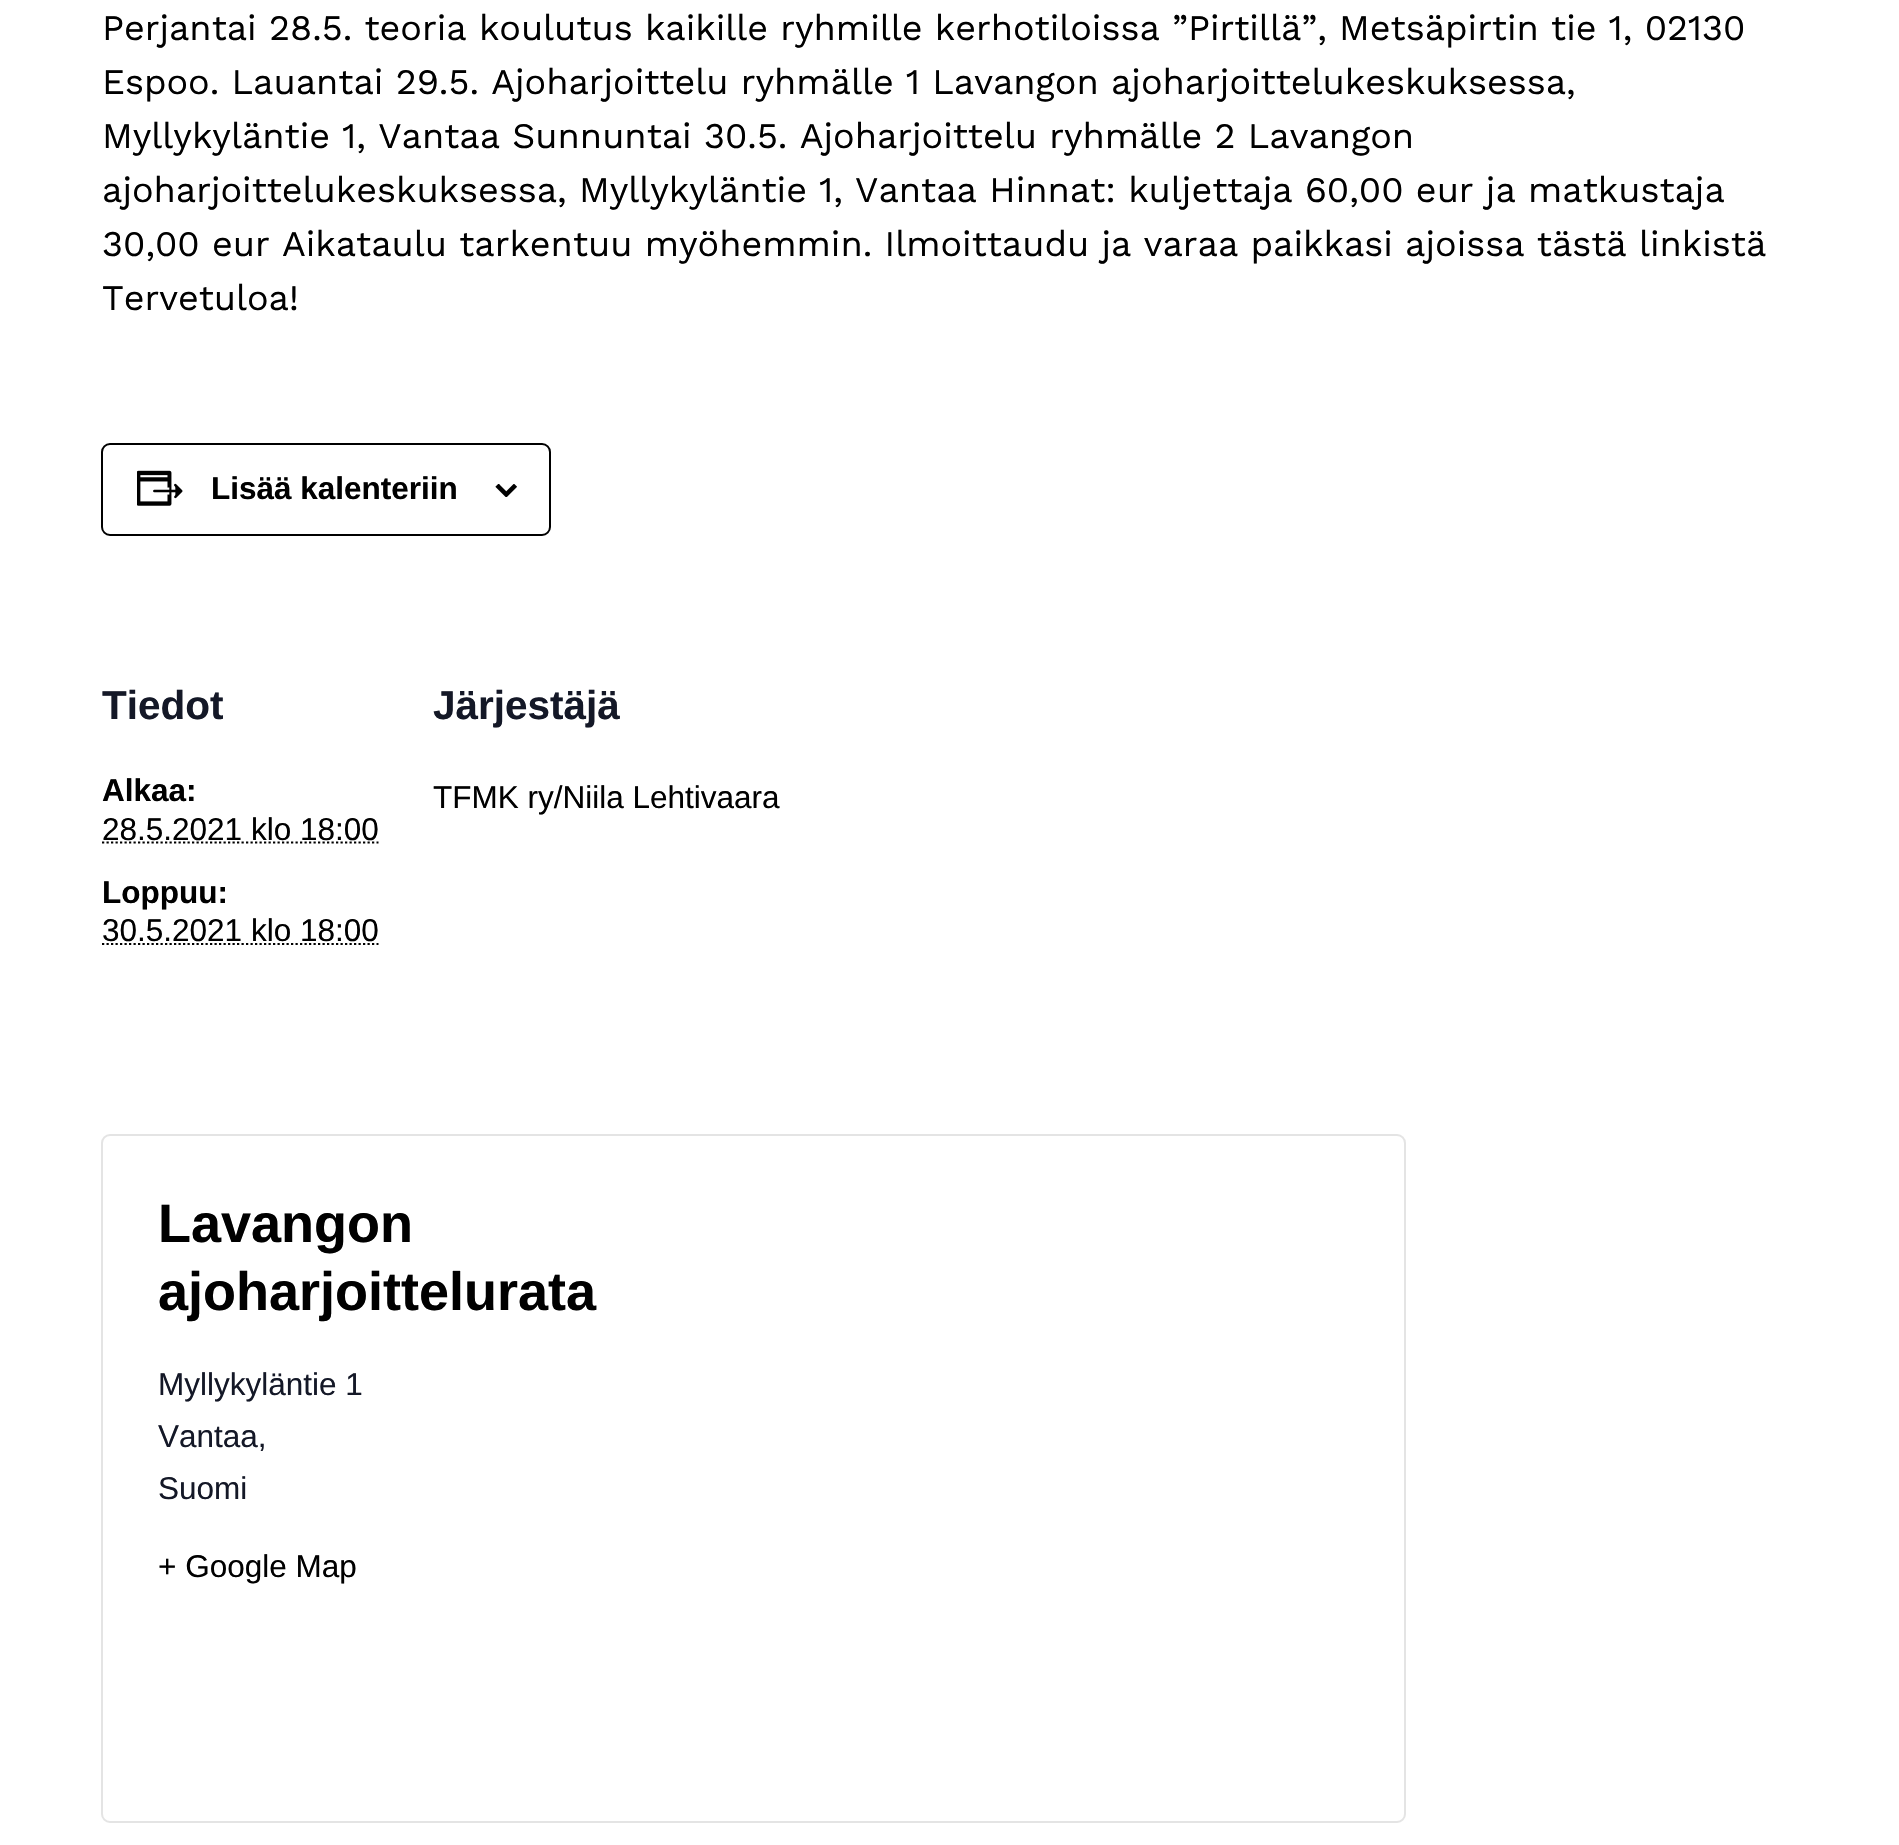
#include "include/core/SkBlurTypes.h"
#include "include/core/SkCanvas.h"
#include "include/core/SkData.h"
#include "include/core/SkFont.h"
#include "include/core/SkFontMgr.h"
#include "include/core/SkImage.h"
#include "include/core/SkMaskFilter.h"
#include "include/core/SkPaint.h"
#include "include/core/SkPathBuilder.h"
#include "include/core/SkTextBlob.h"
#include "include/effects/SkDashPathEffect.h"
#include "include/effects/SkGradientShader.h"
#include "include/utils/SkParsePath.h"

extern sk_sp<SkFontMgr> fontMgr;

void draw(SkCanvas* canvas) {
    SkPaint p;
    p.setAntiAlias(true);
    auto font = [&](const char* family, int weight, float size, bool italic = false) {
        SkFontStyle style(weight, SkFontStyle::kNormal_Width,
            italic ? SkFontStyle::kItalic_Slant : SkFontStyle::kUpright_Slant);
        SkFont result(fontMgr->matchFamilyStyle(family, style), size);
        result.setSubpixel(true);
        return result;
    };
    auto drawPhoto = [&](const char* path, float l, float t, float r, float b) {
        auto image = SkImages::DeferredFromEncodedData(SkData::MakeFromFileName(path));
        canvas->drawImageRect(image, SkRect::MakeLTRB(l, t, r, b), SkSamplingOptions());
    };
    canvas->clear(0xFFFFFFFF);
    auto font1 = font("Work Sans", 400, 36);
    p.setColor(0xFF000000);
    {
        const struct { const char* s; float x, y; } items[] = {
            {"Perjantai 28.5. teoria koulutus kaikille ryhmille kerhotiloissa ”Pirtillä”, Metsäpirtin tie 1, 02130", 102, 40},
            {"Espoo. Lauantai 29.5. Ajoharjoittelu ryhmälle 1 Lavangon ajoharjoittelukeskuksessa,", 102, 94},
            {"Myllykyläntie 1, Vantaa Sunnuntai 30.5. Ajoharjoittelu ryhmälle 2 Lavangon", 102, 148},
            {"ajoharjoittelukeskuksessa, Myllykyläntie 1, Vantaa Hinnat: kuljettaja 60,00 eur ja matkustaja", 102, 202},
            {"30,00 eur Aikataulu tarkentuu myöhemmin. Ilmoittaudu ja varaa paikkasi ajoissa tästä linkistä", 102, 256},
            {"Tervetuloa!", 102, 310},
        };
        for (auto [s, x, y] : items) {
            canvas->drawString(s, x, y, font1, p);
        }
    }
    p.setStyle(SkPaint::kStroke_Style);
    p.setStrokeWidth(2);
    canvas->drawRoundRect(SkRect::MakeLTRB(102, 444, 550, 535), 8, 8, p);
    drawPhoto("media/1.png", 137, 470, 183, 506);
    auto font2 = font("Liberation Sans", 700, 31.5f);
    p.setStyle(SkPaint::kFill_Style);
    canvas->drawString("Lisää kalenteriin", 211, 499, font2, p);
    drawPhoto("media/2.png", 495, 484, 517, 497);
    auto font3 = font("Liberation Sans", 700, 40.5f);
    p.setColor(0xFF141827);
    canvas->drawString("Tiedot", 102, 719, font3, p);
    p.setColor(0xFF000000);
    canvas->drawString("Alkaa:", 102, 801, font2, p);
    auto font4 = font("Liberation Sans", 400, 31.5f);
    canvas->drawString("28.5.2021 klo 18:00", 102, 840, font4, p);
    p.setStyle(SkPaint::kStroke_Style);
    p.setStrokeWidth(2.2f);
    p.setPathEffect(SkDashPathEffect::Make({{2.25f, 2.25f}}, 0));
    canvas->drawPath(SkPathBuilder().moveTo(102, 842.5f).lineTo(378.5f, 842.5f).detach(), p);
    p.setPathEffect(nullptr);
    p.setStyle(SkPaint::kFill_Style);
    canvas->drawString("Loppuu:", 102, 903, font2, p);
    canvas->drawString("30.5.2021 klo 18:00", 102, 941, font4, p);
    p.setStyle(SkPaint::kStroke_Style);
    p.setPathEffect(SkDashPathEffect::Make({{2.25f, 2.25f}}, 0));
    canvas->drawPath(SkPathBuilder().moveTo(102, 944).lineTo(378.5f, 944).detach(), p);
    p.setPathEffect(nullptr);
    p.setStyle(SkPaint::kFill_Style);
    p.setColor(0xFF141827);
    canvas->drawString("Järjestäjä", 433, 719, font3, p);
    p.setColor(0xFF000000);
    canvas->drawString("TFMK ry/Niila Lehtivaara", 433, 808, font4, p);
    p.setStyle(SkPaint::kStroke_Style);
    p.setStrokeWidth(2);
    p.setColor(0xFFE4E4E4);
    canvas->drawRoundRect(SkRect::MakeLTRB(102, 1135, 1405, 1822), 8, 8, p);
    auto font5 = font("Liberation Sans", 700, 54);
    p.setStyle(SkPaint::kFill_Style);
    p.setColor(0xFF000000);
    canvas->drawString("Lavangon", 158, 1242, font5, p);
    canvas->drawString("ajoharjoittelurata", 158, 1310, font5, p);
    p.setColor(0xFF141827);
    {
        const struct { const char* s; float x, y; } items[] = {
            {"Myllykyläntie 1", 158, 1395},
            {"Vantaa,", 158, 1447},
            {"Suomi", 158, 1499},
        };
        for (auto [s, x, y] : items) {
            canvas->drawString(s, x, y, font4, p);
        }
    }
    p.setColor(0xFF000000);
    canvas->drawString("+ Google Map", 158, 1577, font4, p);
}
